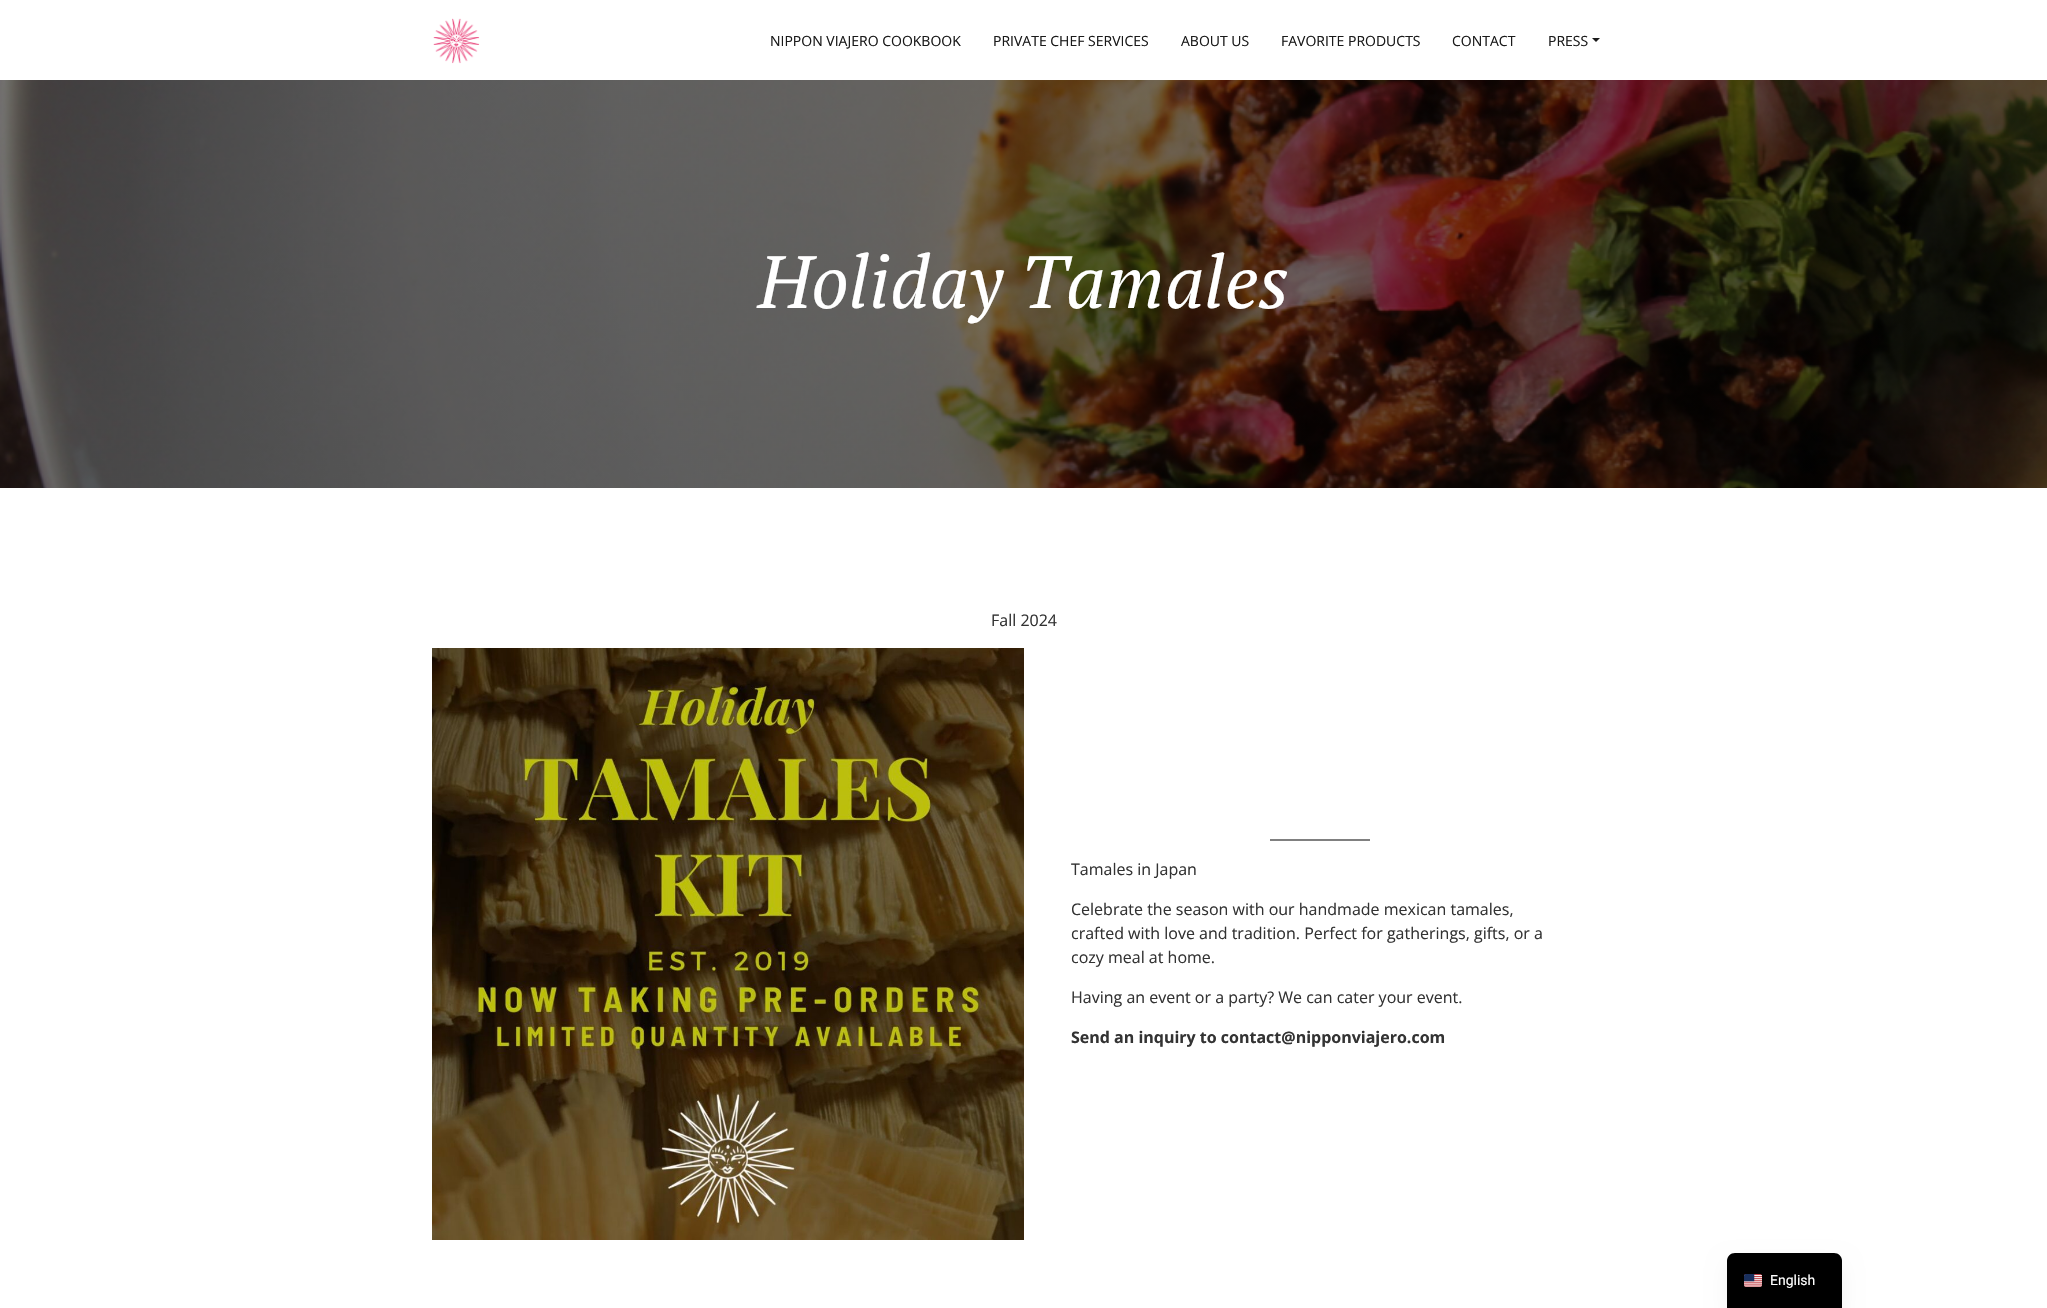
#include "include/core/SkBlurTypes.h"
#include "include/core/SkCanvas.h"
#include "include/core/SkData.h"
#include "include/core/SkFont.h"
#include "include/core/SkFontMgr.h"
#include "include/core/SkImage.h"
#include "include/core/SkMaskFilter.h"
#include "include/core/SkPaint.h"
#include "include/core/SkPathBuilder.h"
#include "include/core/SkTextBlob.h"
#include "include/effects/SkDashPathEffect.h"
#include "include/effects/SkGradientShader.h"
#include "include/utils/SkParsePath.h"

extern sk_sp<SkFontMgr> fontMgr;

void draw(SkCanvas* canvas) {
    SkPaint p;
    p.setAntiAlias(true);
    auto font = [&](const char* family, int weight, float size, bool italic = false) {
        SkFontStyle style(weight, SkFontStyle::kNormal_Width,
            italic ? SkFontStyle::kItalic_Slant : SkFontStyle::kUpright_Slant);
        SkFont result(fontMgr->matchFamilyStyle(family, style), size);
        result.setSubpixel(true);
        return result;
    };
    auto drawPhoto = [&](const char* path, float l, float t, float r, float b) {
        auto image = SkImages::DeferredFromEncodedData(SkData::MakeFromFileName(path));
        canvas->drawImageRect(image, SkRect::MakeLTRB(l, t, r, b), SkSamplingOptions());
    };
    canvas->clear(0xFFFFFFFF);
    drawPhoto("media/1.png", 433, 18, 480, 64);
    auto font1 = font("Open Sans", 400, 14);
    p.setColor(0xFF1A1A1A);
    {
        const struct { const char* s; float x, y; } items[] = {
            {"NIPPON VIAJERO COOKBOOK", 770, 46},
            {"PRIVATE CHEF SERVICES", 993, 46},
            {"ABOUT US", 1181, 46},
            {"FAVORITE PRODUCTS", 1281, 46},
            {"CONTACT", 1452, 46},
            {"PRESS", 1548, 46},
        };
        for (auto [s, x, y] : items) {
            canvas->drawString(s, x, y, font1, p);
        }
    }
    canvas->drawPath(SkPathBuilder().moveTo(1592, 38).lineTo(1600, 38).lineTo(1596, 42).close().detach(), p);
    drawPhoto("media/2.png", 0, 80, 2047, 488);
    auto font2 = font("PT Serif", 400, 74, true);
    p.setColor(0xFFFFFFFF);
    canvas->drawString("Holiday Tamales", 758, 308, font2, p);
    auto font3 = font("Open Sans", 400, 16);
    p.setColor(0xFF333333);
    canvas->drawString("Fall 2024", 991, 626, font3, p);
    drawPhoto("media/3.png", 432, 648, 1024, 1240);
    p.setColor(0xFF808080);
    canvas->drawRect(SkRect::MakeLTRB(1270, 839, 1370, 841), p);
    p.setColor(0xFF333333);
    {
        const struct { const char* s; float x, y; } items[] = {
            {"Tamales in Japan", 1071, 875},
            {"Celebrate the season with our handmade mexican tamales,", 1071, 915},
            {"crafted with love and tradition. Perfect for gatherings, gifts, or a", 1071, 939},
            {"cozy meal at home.", 1071, 963},
            {"Having an event or a party? We can cater your event.", 1071, 1003},
        };
        for (auto [s, x, y] : items) {
            canvas->drawString(s, x, y, font3, p);
        }
    }
    auto font4 = font("Open Sans", 700, 16);
    canvas->drawString("Send an inquiry to contact@nipponviajero.com", 1071, 1043, font4, p);
    p.setColor(0x0D000000);
    p.setMaskFilter(SkMaskFilter::MakeBlur(kNormal_SkBlurStyle, 10));
    canvas->drawRoundRect(SkRect::MakeLTRB(1727, 1263, 1842, 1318), 8, 8, p);
    p.setMaskFilter(nullptr);
    p.setColor(0xFF000000);
    canvas->drawPath(SkPathBuilder().moveTo(1735, 1253).lineTo(1834, 1253).cubicTo(1838.5f, 1253, 1842, 1256.5f, 1842, 1261).lineTo(1842, 1308).lineTo(1727, 1308).lineTo(1727, 1261).cubicTo(1727, 1256.5f, 1730.5f, 1253, 1735, 1253).close().detach(), p);
    drawPhoto("media/4.png", 1744, 1274, 1762, 1287);
    auto font5 = font("Roboto", 400, 14);
    p.setColor(0xFFFFFFFF);
    canvas->drawString("English", 1770, 1285, font5, p);
}
